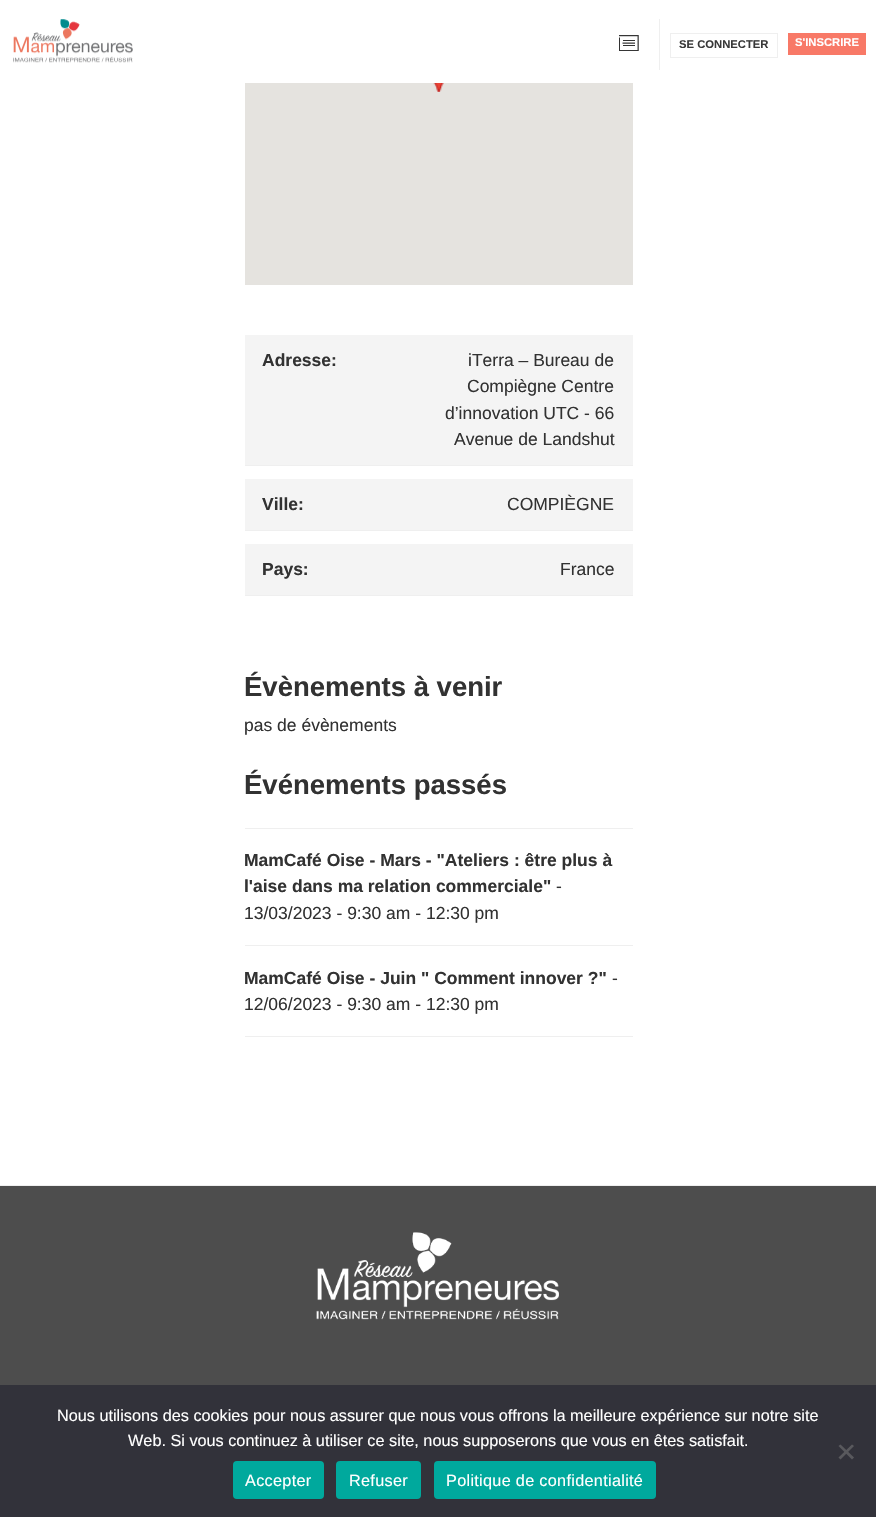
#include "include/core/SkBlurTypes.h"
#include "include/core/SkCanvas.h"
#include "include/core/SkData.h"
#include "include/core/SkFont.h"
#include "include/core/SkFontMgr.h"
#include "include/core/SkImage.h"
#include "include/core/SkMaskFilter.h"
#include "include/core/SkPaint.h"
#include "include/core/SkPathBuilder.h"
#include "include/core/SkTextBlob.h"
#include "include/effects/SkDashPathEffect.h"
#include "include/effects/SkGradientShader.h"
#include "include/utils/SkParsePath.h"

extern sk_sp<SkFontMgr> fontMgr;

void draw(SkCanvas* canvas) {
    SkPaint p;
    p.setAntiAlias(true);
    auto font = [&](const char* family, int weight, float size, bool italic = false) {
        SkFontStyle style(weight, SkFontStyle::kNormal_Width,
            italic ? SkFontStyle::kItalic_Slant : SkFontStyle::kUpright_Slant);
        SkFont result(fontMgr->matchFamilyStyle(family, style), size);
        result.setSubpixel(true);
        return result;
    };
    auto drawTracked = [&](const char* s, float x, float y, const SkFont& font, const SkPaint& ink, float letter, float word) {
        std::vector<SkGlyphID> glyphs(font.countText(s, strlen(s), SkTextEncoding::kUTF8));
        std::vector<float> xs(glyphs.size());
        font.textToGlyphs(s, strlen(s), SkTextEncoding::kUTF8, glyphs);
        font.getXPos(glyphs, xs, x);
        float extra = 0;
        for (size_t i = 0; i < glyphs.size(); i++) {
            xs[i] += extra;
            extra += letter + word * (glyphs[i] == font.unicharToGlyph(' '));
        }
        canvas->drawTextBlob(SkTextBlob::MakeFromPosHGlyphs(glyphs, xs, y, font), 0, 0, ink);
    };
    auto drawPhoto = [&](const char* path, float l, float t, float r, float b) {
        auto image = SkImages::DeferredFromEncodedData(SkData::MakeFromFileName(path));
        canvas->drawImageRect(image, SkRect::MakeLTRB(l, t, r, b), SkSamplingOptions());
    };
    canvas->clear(0xFFFFFFFF);
    drawPhoto("media/1.png", 13, 19, 133, 63);
    drawPhoto("media/2.png", 619, 35, 639, 51);
    p.setColor(0xFFEFEFEF);
    canvas->drawRect(SkRect::MakeLTRB(659, 19, 660, 70), p);
    p.setStyle(SkPaint::kStroke_Style);
    p.setStrokeWidth(1);
    canvas->drawRect(SkRect::MakeLTRB(670.5f, 33.5f, 777.5f, 57.5f), p);
    auto font1 = font("Liberation Sans", 700, 11.25f);
    p.setStyle(SkPaint::kFill_Style);
    p.setColor(0xFF383838);
    canvas->drawString("SE CONNECTER", 679, 48, font1, p);
    p.setColor(0xFFF87967);
    canvas->drawRect(SkRect::MakeLTRB(788, 33, 866, 55), p);
    p.setColor(0xFFFFFFFF);
    canvas->drawString("S'INSCRIRE", 795, 46, font1, p);
    p.setColor(0xFFE5E3DF);
    canvas->drawRect(SkRect::MakeLTRB(245, 83, 633, 285), p);
    drawPhoto("media/3.png", 433, 83, 444, 92);
    p.setColor(0xFFF4F4F4);
    canvas->drawRect(SkRect::MakeLTRB(245, 335, 633, 465), p);
    p.setColor(0xFFEFEFEF);
    canvas->drawRect(SkRect::MakeLTRB(245, 465, 633, 466), p);
    auto font2 = font("Liberation Sans", 700, 17.5f);
    p.setColor(0xFF323232);
    canvas->drawString("Adresse:", 262, 366, font2, p);
    auto font3 = font("Liberation Sans", 400, 17.5f);
    {
        const struct { const char* s; float x, y; } items[] = {
            {"iTerra – Bureau de", 468, 366},
            {"Compiègne Centre", 467, 392},
            {"d’innovation UTC - 66", 445, 419},
            {"Avenue de Landshut", 454, 445},
        };
        for (auto [s, x, y] : items) {
            canvas->drawString(s, x, y, font3, p);
        }
    }
    p.setColor(0xFFF4F4F4);
    canvas->drawRect(SkRect::MakeLTRB(245, 479, 633, 530), p);
    p.setColor(0xFFEFEFEF);
    canvas->drawRect(SkRect::MakeLTRB(245, 530, 633, 531), p);
    p.setColor(0xFF323232);
    canvas->drawString("Ville:", 262, 510, font2, p);
    canvas->drawString("COMPIÈGNE", 507, 510, font3, p);
    p.setColor(0xFFF4F4F4);
    canvas->drawRect(SkRect::MakeLTRB(245, 544, 633, 595), p);
    p.setColor(0xFFEFEFEF);
    canvas->drawRect(SkRect::MakeLTRB(245, 595, 633, 596), p);
    p.setColor(0xFF323232);
    canvas->drawString("Pays:", 262, 575, font2, p);
    canvas->drawString("France", 560, 575, font3, p);
    auto font4 = font("Liberation Sans", 700, 27.5f);
    canvas->drawString("Évènements à venir", 244, 696, font4, p);
    canvas->drawString("pas de évènements", 244, 731, font3, p);
    canvas->drawString("Événements passés", 244, 794, font4, p);
    p.setColor(0xFFEFEFEF);
    canvas->drawRect(SkRect::MakeLTRB(245, 828, 633, 829), p);
    canvas->drawRect(SkRect::MakeLTRB(245, 945, 633, 946), p);
    p.setColor(0xFF323232);
    canvas->drawString("MamCafé Oise - Mars - \"Ateliers : être plus à", 244, 866, font2, p);
    canvas->drawString("l'aise dans ma relation commerciale\"", 244, 892, font2, p);
    canvas->drawString("-", 556, 892, font3, p);
    canvas->drawString("13/03/2023 - 9:30 am - 12:30 pm", 244, 919, font3, p);
    p.setColor(0xFFEFEFEF);
    canvas->drawRect(SkRect::MakeLTRB(245, 1036, 633, 1037), p);
    p.setColor(0xFF323232);
    canvas->drawString("MamCafé Oise - Juin \" Comment innover ?\"", 244, 984, font2, p);
    canvas->drawString("-", 612, 984, font3, p);
    canvas->drawString("12/06/2023 - 9:30 am - 12:30 pm", 244, 1010, font3, p);
    p.setColor(0xFF4D4D4D);
    canvas->drawRect(SkRect::MakeLTRB(0, 1186, 876, 1385), p);
    p.setColor(0xFFEFEFEF);
    canvas->drawRect(SkRect::MakeLTRB(0, 1185, 876, 1186), p);
    drawPhoto("media/4.png", 316, 1232, 559, 1320);
    p.setColor(0xFF32323A);
    canvas->drawRect(SkRect::MakeLTRB(0, 1385, 876, 1517), p);
    auto font5 = font("Liberation Sans", 400, 16.25f);
    p.setColor(0xFFFFFFFF);
    canvas->drawString("Nous utilisons des cookies pour nous assurer que nous vous offrons la meilleure expérience sur notre site", 57, 1421, font5, p);
    canvas->drawString("Web. Si vous continuez à utiliser ce site, nous supposerons que vous en êtes satisfait.", 128, 1446, font5, p);
    p.setColor(0xFF59595D);
    canvas->drawPath(SkPathBuilder().moveTo(852, 1444.5f).lineTo(854, 1446).lineTo(840.5f, 1459.5f).lineTo(838.5f, 1457.5f).close().detach(), p);
    canvas->drawPath(SkPathBuilder().moveTo(838.5f, 1446).lineTo(840.5f, 1444.5f).lineTo(854, 1457.5f).lineTo(852, 1459.5f).close().detach(), p);
    p.setColor(0xFF00A99D);
    canvas->drawRoundRect(SkRect::MakeLTRB(233, 1461, 324, 1499), 4, 4, p);
    p.setColor(0xFFFFFFFF);
    drawTracked("Accepter", 245, 1486, font5, p, 0.3f, 0);
    p.setColor(0xFF00A99D);
    canvas->drawRoundRect(SkRect::MakeLTRB(336, 1461, 421, 1499), 4, 4, p);
    p.setColor(0xFFFFFFFF);
    drawTracked("Refuser", 349, 1486, font5, p, 0.3f, 0);
    p.setColor(0xFF00A99D);
    canvas->drawRoundRect(SkRect::MakeLTRB(434, 1461, 656, 1499), 4, 4, p);
    p.setColor(0xFFFFFFFF);
    drawTracked("Politique de confidentialité", 446, 1486, font5, p, 0.3f, 0);
}
